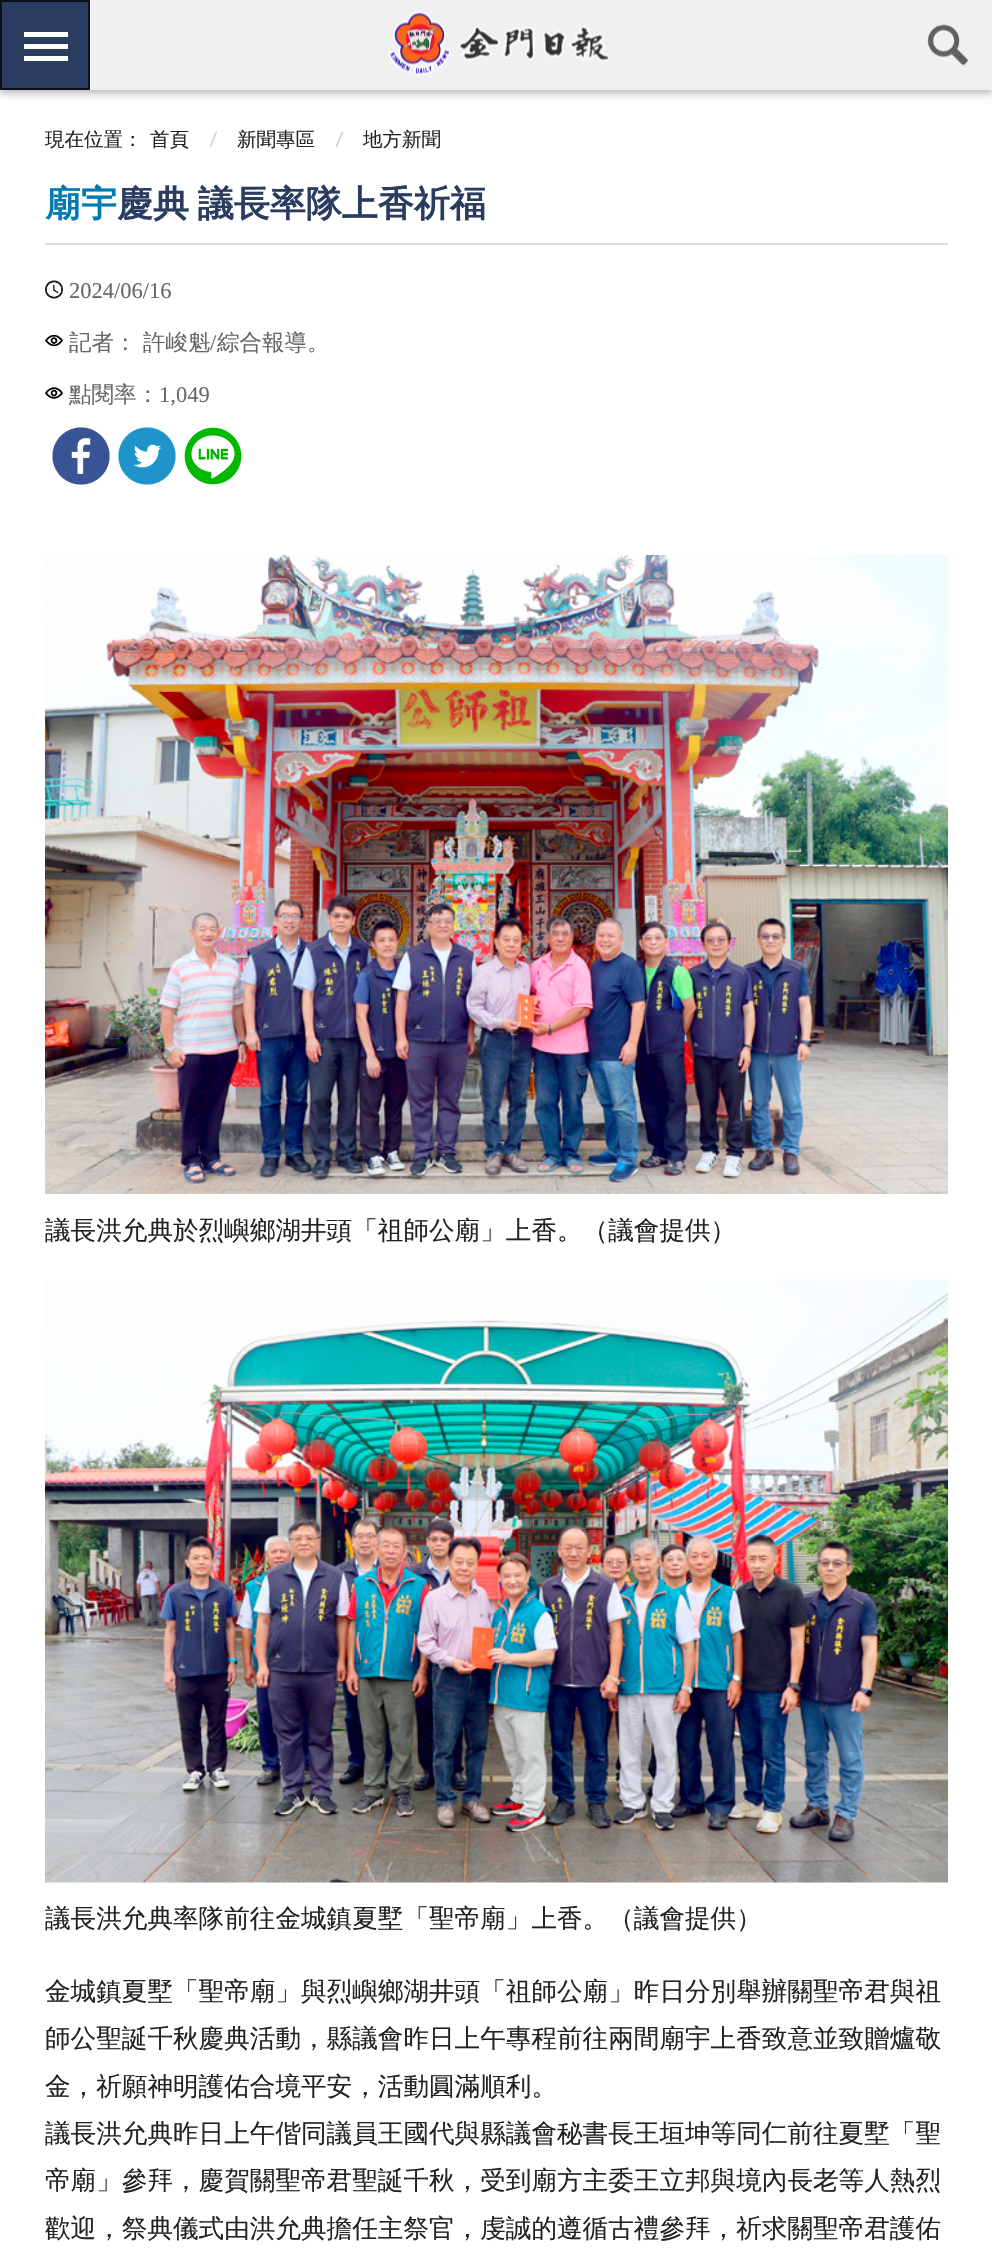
#include "include/core/SkBlurTypes.h"
#include "include/core/SkCanvas.h"
#include "include/core/SkData.h"
#include "include/core/SkFont.h"
#include "include/core/SkFontMgr.h"
#include "include/core/SkImage.h"
#include "include/core/SkMaskFilter.h"
#include "include/core/SkPaint.h"
#include "include/core/SkPathBuilder.h"
#include "include/core/SkTextBlob.h"
#include "include/effects/SkDashPathEffect.h"
#include "include/effects/SkGradientShader.h"
#include "include/utils/SkParsePath.h"

extern sk_sp<SkFontMgr> fontMgr;

void draw(SkCanvas* canvas) {
    SkPaint p;
    p.setAntiAlias(true);
    auto font = [&](const char* family, int weight, float size, bool italic = false) {
        SkFontStyle style(weight, SkFontStyle::kNormal_Width,
            italic ? SkFontStyle::kItalic_Slant : SkFontStyle::kUpright_Slant);
        SkFont result(fontMgr->matchFamilyStyle(family, style), size);
        result.setSubpixel(true);
        return result;
    };
    auto drawTracked = [&](const char* s, float x, float y, const SkFont& font, const SkPaint& ink, float letter, float word) {
        std::vector<SkGlyphID> glyphs(font.countText(s, strlen(s), SkTextEncoding::kUTF8));
        std::vector<float> xs(glyphs.size());
        font.textToGlyphs(s, strlen(s), SkTextEncoding::kUTF8, glyphs);
        font.getXPos(glyphs, xs, x);
        float extra = 0;
        for (size_t i = 0; i < glyphs.size(); i++) {
            xs[i] += extra;
            extra += letter + word * (glyphs[i] == font.unicharToGlyph(' '));
        }
        canvas->drawTextBlob(SkTextBlob::MakeFromPosHGlyphs(glyphs, xs, y, font), 0, 0, ink);
    };
    auto drawPhoto = [&](const char* path, float l, float t, float r, float b) {
        auto image = SkImages::DeferredFromEncodedData(SkData::MakeFromFileName(path));
        canvas->drawImageRect(image, SkRect::MakeLTRB(l, t, r, b), SkSamplingOptions());
    };
    canvas->clear(0xFFFFFFFF);
    p.setColor(0x4D000000);
    p.setMaskFilter(SkMaskFilter::MakeBlur(kNormal_SkBlurStyle, 4));
    canvas->drawRect(SkRect::MakeLTRB(0, 3, 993, 93), p);
    p.setMaskFilter(nullptr);
    p.setColor(0xFFF0F0F0);
    canvas->drawRect(SkRect::MakeLTRB(90, 0, 992, 90), p);
    p.setColor(0xFF2A3D61);
    canvas->drawRect(SkRect::MakeLTRB(1, 1, 89, 89), p);
    p.setStyle(SkPaint::kStroke_Style);
    p.setStrokeWidth(2);
    p.setColor(0xFF0B101A);
    canvas->drawRect(SkRect::MakeLTRB(1, 1, 89, 89), p);
    p.setStyle(SkPaint::kFill_Style);
    {
        const struct { float l, t, r, b; SkColor color; } items[] = {
            {24, 32, 68, 37, 0xFFFFFFFF},
            {24, 44, 68, 49, 0xFFFFFFFF},
            {24, 56, 68, 61, 0xFFFFFFFF},
        };
        for (auto [l, t, r, b, color] : items) {
            p.setColor(color);
            canvas->drawRect(SkRect::MakeLTRB(l, t, r, b), p);
        }
    }
    drawPhoto("media/1.png", 388, 10, 610, 76);
    drawPhoto("media/2.png", 927, 24, 968, 66);
    auto font1 = font("WenQuanYi Zen Hei", 500, 19.5f);
    p.setColor(0xFF222222);
    canvas->drawString("現在位置：", 45, 146, font1, p);
    canvas->drawString("首頁", 150, 146, font1, p);
    auto font2 = font("Lato", 400, 19.5f);
    p.setColor(0xFFCCCCCC);
    canvas->drawString("/", 209, 146, font2, p);
    p.setColor(0xFF222222);
    canvas->drawString("新聞專區", 237, 146, font1, p);
    p.setColor(0xFFCCCCCC);
    canvas->drawString("/", 335, 146, font2, p);
    p.setColor(0xFF222222);
    canvas->drawString("地方新聞", 363, 146, font1, p);
    auto font3 = font("WenQuanYi Zen Hei", 700, 36);
    p.setColor(0xFF007AB1);
    canvas->drawString("廟宇", 45, 216, font3, p);
    p.setColor(0xFF2A3D61);
    drawTracked("慶典 議長率隊上香祈福", 117, 216, font3, p, 0, -2);
    p.setColor(0xFFDDDDDD);
    canvas->drawRect(SkRect::MakeLTRB(45, 243, 948, 245), p);
    drawPhoto("media/3.png", 45, 280, 63, 299);
    auto font4 = font("Liberation Serif", 400, 22.5f);
    p.setColor(0xFF666666);
    canvas->drawString("2024/06/16", 69, 298, font4, p);
    drawPhoto("media/4.png", 45, 335, 63, 346);
    auto font5 = font("WenQuanYi Zen Hei", 500, 22.5f);
    canvas->drawString("記者：", 69, 350, font5, p);
    canvas->drawString("許峻魁", 143, 350, font5, p);
    canvas->drawString("/", 210, 350, font4, p);
    canvas->drawString("綜合報導。", 217, 350, font5, p);
    drawPhoto("media/5.png", 45, 387, 63, 399);
    canvas->drawString("點閱率：", 69, 402, font5, p);
    canvas->drawString("1,049", 159, 402, font4, p);
    drawPhoto("media/6.png", 52, 427, 110, 485);
    drawPhoto("media/7.png", 118, 427, 176, 485);
    drawPhoto("media/8.png", 184, 427, 242, 485);
    drawPhoto("media/9.png", 45, 555, 948, 1194);
    auto font6 = font("WenQuanYi Zen Hei", 500, 25.6f);
    p.setColor(0xFF222222);
    canvas->drawString("議長洪允典於烈嶼鄉湖井頭「祖師公廟」上香。（議會提供）", 45, 1239, font6, p);
    drawPhoto("media/10.png", 45, 1279, 948, 1883);
    {
        const struct { const char* s; float x, y; } items[] = {
            {"議長洪允典率隊前往金城鎮夏墅「聖帝廟」上香。（議會提供）", 45, 1927},
            {"金城鎮夏墅「聖帝廟」與烈嶼鄉湖井頭「祖師公廟」昨日分別舉辦關聖帝君與祖", 45, 2000},
            {"師公聖誕千秋慶典活動，縣議會昨日上午專程前往兩間廟宇上香致意並致贈爐敬", 45, 2047},
            {"金，祈願神明護佑合境平安，活動圓滿順利。", 45, 2095},
            {"議長洪允典昨日上午偕同議員王國代與縣議會秘書長王垣坤等同仁前往夏墅「聖", 45, 2142},
            {"帝廟」參拜，慶賀關聖帝君聖誕千秋，受到廟方主委王立邦與境內長老等人熱烈", 45, 2189},
            {"歡迎，祭典儀式由洪允典擔任主祭官，虔誠的遵循古禮參拜，祈求關聖帝君護佑", 45, 2237},
        };
        for (auto [s, x, y] : items) {
            canvas->drawString(s, x, y, font6, p);
        }
    }
}
